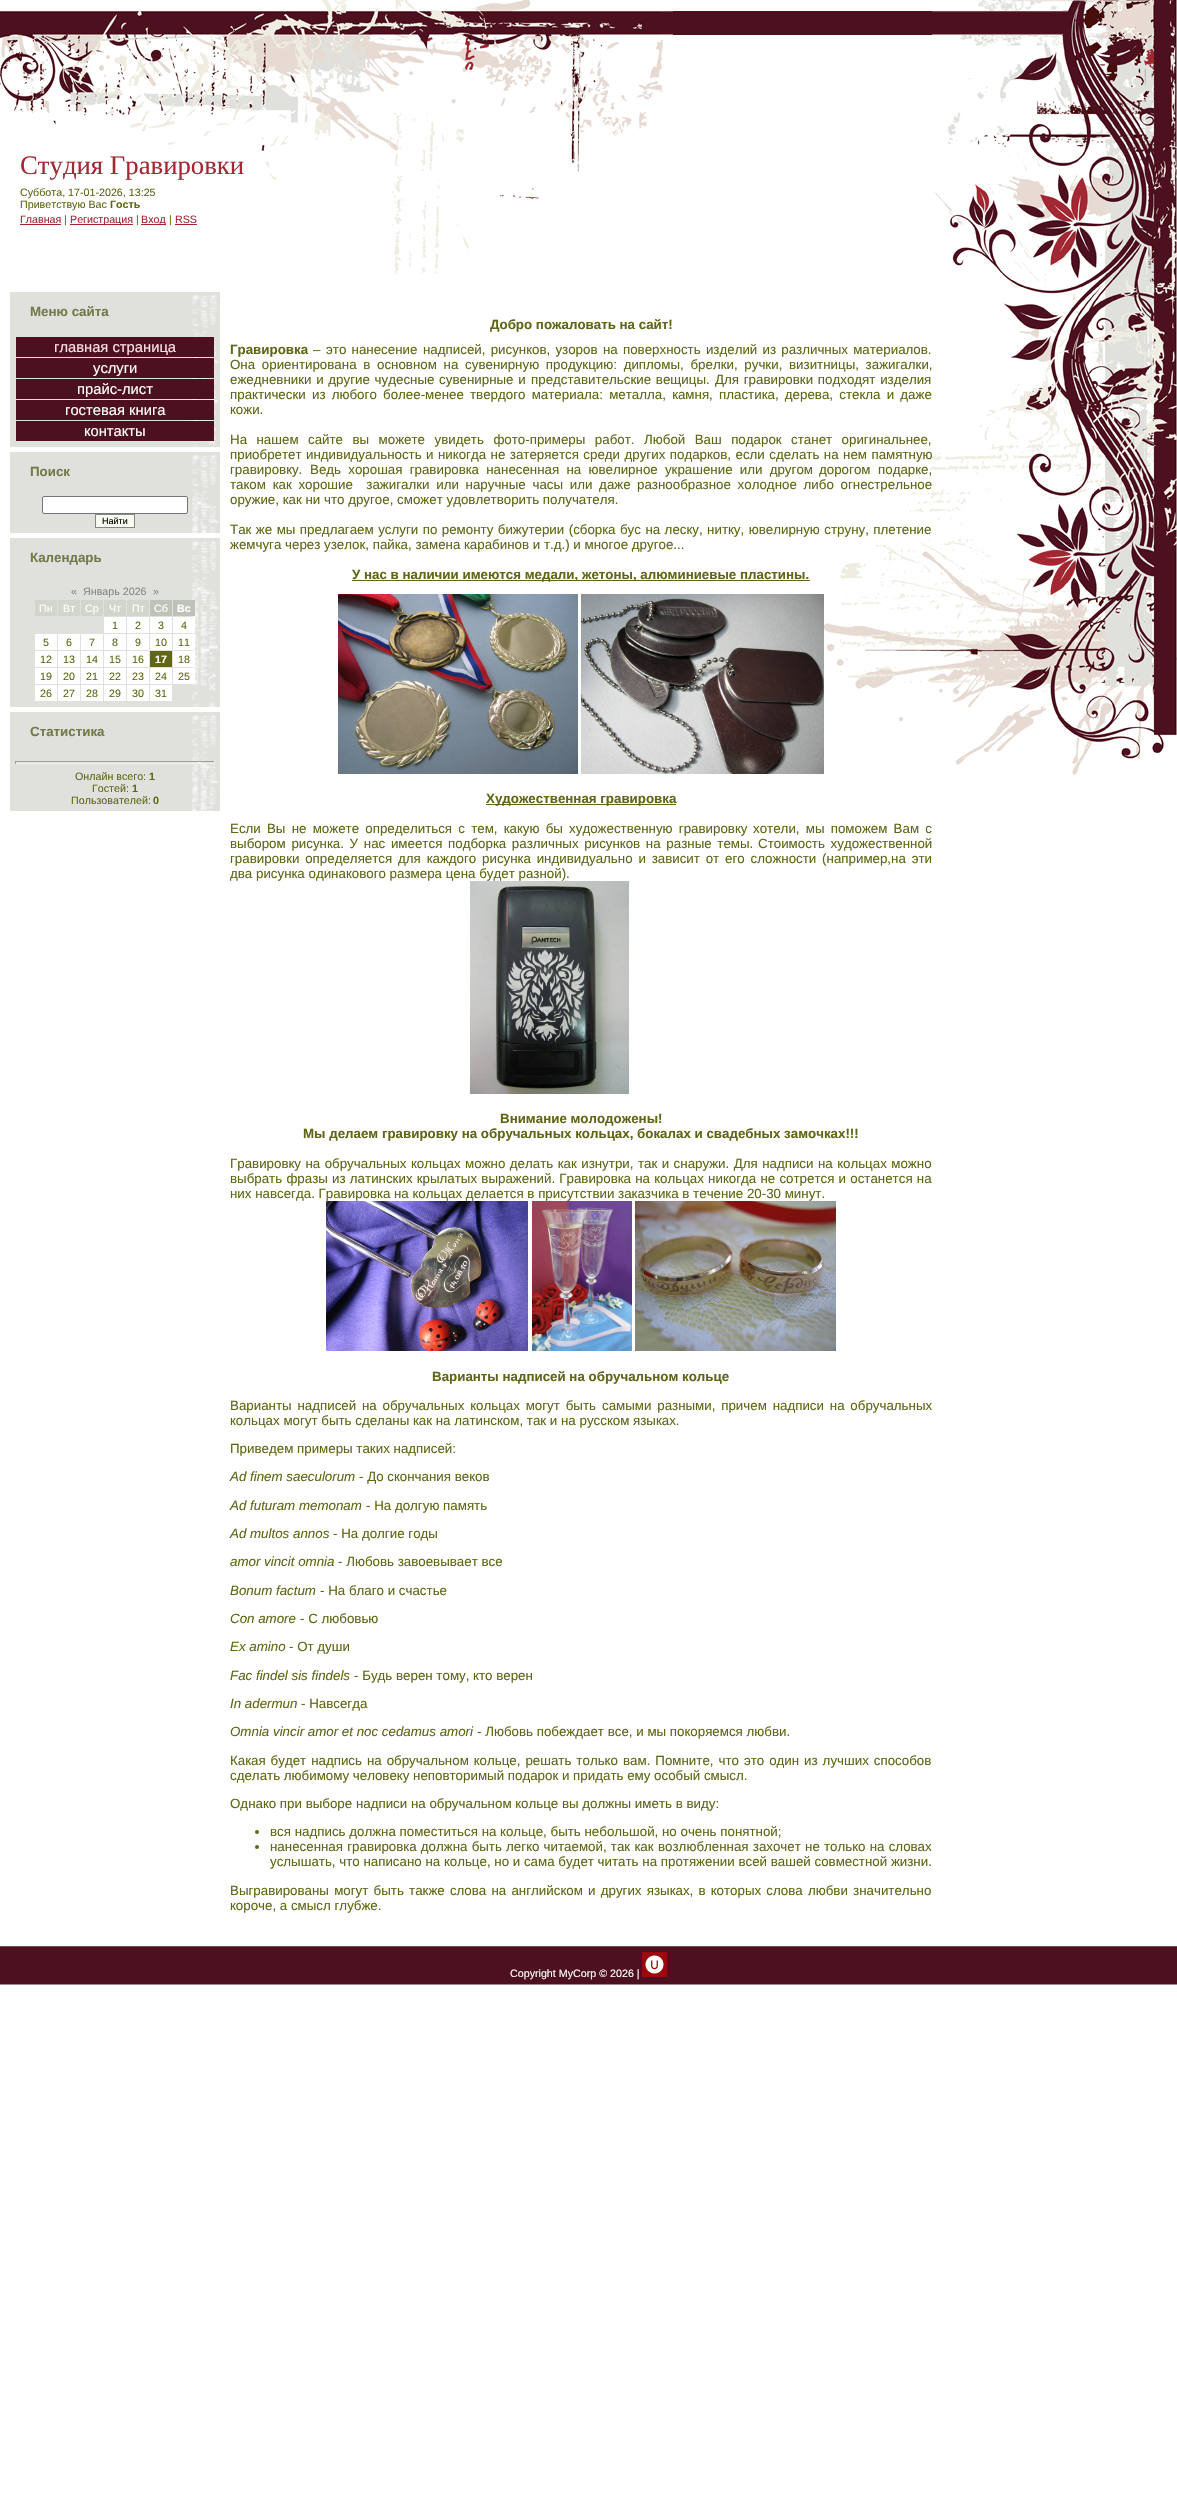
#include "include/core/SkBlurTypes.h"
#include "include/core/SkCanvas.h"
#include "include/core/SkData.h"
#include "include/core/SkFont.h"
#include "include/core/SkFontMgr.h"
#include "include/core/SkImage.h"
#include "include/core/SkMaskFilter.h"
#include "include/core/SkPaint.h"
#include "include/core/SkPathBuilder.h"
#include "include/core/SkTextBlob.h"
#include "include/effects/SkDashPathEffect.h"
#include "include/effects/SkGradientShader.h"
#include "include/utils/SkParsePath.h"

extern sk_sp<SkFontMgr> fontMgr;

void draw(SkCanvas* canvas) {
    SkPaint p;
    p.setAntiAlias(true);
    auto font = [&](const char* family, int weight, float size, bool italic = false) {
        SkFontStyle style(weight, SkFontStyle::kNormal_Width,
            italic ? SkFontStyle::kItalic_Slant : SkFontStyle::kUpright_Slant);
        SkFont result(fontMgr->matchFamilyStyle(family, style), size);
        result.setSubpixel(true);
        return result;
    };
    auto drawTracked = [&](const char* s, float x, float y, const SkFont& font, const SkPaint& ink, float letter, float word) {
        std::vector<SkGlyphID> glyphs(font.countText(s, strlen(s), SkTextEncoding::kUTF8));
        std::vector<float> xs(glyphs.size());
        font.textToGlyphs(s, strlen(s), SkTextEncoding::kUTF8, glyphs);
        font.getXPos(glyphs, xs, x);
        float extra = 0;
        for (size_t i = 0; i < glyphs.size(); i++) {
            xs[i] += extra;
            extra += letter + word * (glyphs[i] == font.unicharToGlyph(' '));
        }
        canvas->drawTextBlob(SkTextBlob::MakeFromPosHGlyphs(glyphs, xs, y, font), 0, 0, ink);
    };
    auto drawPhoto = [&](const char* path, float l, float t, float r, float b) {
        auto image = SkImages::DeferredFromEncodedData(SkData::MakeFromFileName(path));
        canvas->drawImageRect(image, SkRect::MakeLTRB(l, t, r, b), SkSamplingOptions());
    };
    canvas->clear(0xFFFFFFFF);
    p.setColor(0xFF4D101F);
    canvas->drawRect(SkRect::MakeLTRB(234, 11, 932, 35), p);
    drawPhoto("media/1.png", 0, 0, 673, 275);
    auto font1 = font("Liberation Serif", 400, 26.75f);
    p.setColor(0xFFA22833);
    canvas->drawString("Студия Гравировки", 20, 174, font1, p);
    auto font2 = font("Liberation Sans", 400, 10.7f);
    p.setColor(0xFF606615);
    canvas->drawString("Суббота, 17-01-2026, 13:25", 20, 196, font2, p);
    canvas->drawString("Приветствую Вас", 20, 208, font2, p);
    auto font3 = font("Liberation Sans", 700, 10.7f);
    canvas->drawString("Гость", 110, 208, font3, p);
    p.setColor(0xFFA22833);
    canvas->drawString("Главная", 20, 223, font2, p);
    canvas->drawRect(SkRect::MakeLTRB(20, 224, 61, 225), p);
    p.setColor(0xFF606615);
    canvas->drawString("|", 64, 223, font2, p);
    p.setColor(0xFFA22833);
    canvas->drawRect(SkRect::MakeLTRB(70, 224, 133, 225), p);
    canvas->drawString("Регистрация", 70, 223, font2, p);
    p.setColor(0xFF606615);
    canvas->drawString("|", 136, 223, font2, p);
    p.setColor(0xFFA22833);
    canvas->drawRect(SkRect::MakeLTRB(141, 224, 166, 225), p);
    canvas->drawString("Вход", 141, 223, font2, p);
    p.setColor(0xFF606615);
    canvas->drawString("|", 169, 223, font2, p);
    p.setColor(0xFFA22833);
    canvas->drawString("RSS", 175, 223, font2, p);
    canvas->drawRect(SkRect::MakeLTRB(175, 224, 197, 225), p);
    drawPhoto("media/2.png", 932, 0, 1177, 282);
    drawPhoto("media/3.png", 823, 456, 932, 722);
    p.setColor(0xFFE0E1DC);
    canvas->drawRect(SkRect::MakeLTRB(10, 292, 220, 447), p);
    drawPhoto("media/4.png", 191, 295, 219, 447);
    auto font4 = font("Liberation Sans", 700, 13.33f);
    p.setColor(0xFF717B4A);
    canvas->drawString("Меню сайта", 30, 316, font4, p);
    p.setColor(0xFF4D101F);
    canvas->drawRect(SkRect::MakeLTRB(16, 337, 214, 357), p);
    auto font5 = font("Liberation Sans", 400, 14.75f);
    p.setColor(0xFFFFE0E6);
    canvas->drawString("главная страница", 54, 352, font5, p);
    p.setColor(0xFF4D101F);
    canvas->drawRect(SkRect::MakeLTRB(16, 358, 214, 378), p);
    p.setColor(0xFFFFFFFF);
    canvas->drawString("услуги", 93, 373, font5, p);
    p.setColor(0xFF4D101F);
    canvas->drawRect(SkRect::MakeLTRB(16, 379, 214, 399), p);
    p.setColor(0xFFFFFFFF);
    canvas->drawString("прайс-лист", 77, 394, font5, p);
    p.setColor(0xFF4D101F);
    canvas->drawRect(SkRect::MakeLTRB(16, 400, 214, 420), p);
    p.setColor(0xFFFFFFFF);
    canvas->drawString("гостевая книга", 65, 415, font5, p);
    p.setColor(0xFF4D101F);
    canvas->drawRect(SkRect::MakeLTRB(16, 421, 214, 441), p);
    p.setColor(0xFFFFFFFF);
    canvas->drawString("контакты", 84, 436, font5, p);
    p.setColor(0xFFE0E1DC);
    canvas->drawRect(SkRect::MakeLTRB(10, 452, 220, 533), p);
    drawPhoto("media/5.png", 192, 455, 219, 533);
    p.setColor(0xFF717B4A);
    canvas->drawString("Поиск", 30, 476, font4, p);
    p.setColor(0xFFFFFFFF);
    canvas->drawRoundRect(SkRect::MakeLTRB(42.5f, 496.5f, 187.5f, 513.5f), 1.5f, 1.5f, p);
    p.setStyle(SkPaint::kStroke_Style);
    p.setStrokeWidth(1);
    p.setColor(0xFF767676);
    canvas->drawRoundRect(SkRect::MakeLTRB(42.5f, 496.5f, 187.5f, 513.5f), 1.5f, 1.5f, p);
    p.setStyle(SkPaint::kFill_Style);
    p.setColor(0xFFF8FBF1);
    canvas->drawRect(SkRect::MakeLTRB(95.5f, 514.5f, 134.5f, 527.5f), p);
    p.setStyle(SkPaint::kStroke_Style);
    p.setColor(0xFF868882);
    canvas->drawRect(SkRect::MakeLTRB(95.5f, 514.5f, 134.5f, 527.5f), p);
    auto font6 = font("Liberation Sans", 400, 9);
    p.setStyle(SkPaint::kFill_Style);
    p.setColor(0xFF000000);
    canvas->drawString("Найти", 102, 524, font6, p);
    p.setColor(0xFFE0E1DC);
    canvas->drawRect(SkRect::MakeLTRB(10, 538, 220, 707), p);
    drawPhoto("media/6.png", 191, 541, 219, 707);
    p.setColor(0xFF717B4A);
    canvas->drawString("Календарь", 30, 562, font4, p);
    p.setColor(0xFF868882);
    {
        const struct { const char* s; float x, y; } items[] = {
            {"«", 71, 595},
            {"Январь 2026", 83, 595},
            {"»", 153, 595},
        };
        for (auto [s, x, y] : items) {
            canvas->drawString(s, x, y, font2, p);
        }
    }
    p.setColor(0xFFD2D5CB);
    canvas->drawRect(SkRect::MakeLTRB(35, 600, 57, 616), p);
    p.setColor(0xFFFFFFFF);
    canvas->drawString("Пн", 39, 612, font2, p);
    p.setColor(0xFFD2D5CB);
    canvas->drawRect(SkRect::MakeLTRB(58, 600, 80, 616), p);
    p.setColor(0xFFFFFFFF);
    canvas->drawString("Вт", 63, 612, font2, p);
    p.setColor(0xFFD2D5CB);
    canvas->drawRect(SkRect::MakeLTRB(81, 600, 103, 616), p);
    p.setColor(0xFFFFFFFF);
    canvas->drawString("Ср", 85, 612, font2, p);
    p.setColor(0xFFD2D5CB);
    canvas->drawRect(SkRect::MakeLTRB(104, 600, 126, 616), p);
    p.setColor(0xFFFFFFFF);
    canvas->drawString("Чт", 109, 612, font2, p);
    p.setColor(0xFFD2D5CB);
    canvas->drawRect(SkRect::MakeLTRB(127, 600, 149, 616), p);
    p.setColor(0xFFFFFFFF);
    canvas->drawString("Пт", 132, 612, font2, p);
    p.setColor(0xFFBFC2B9);
    canvas->drawRect(SkRect::MakeLTRB(150, 600, 172, 616), p);
    p.setColor(0xFFFFFFFF);
    canvas->drawString("Сб", 154, 612, font2, p);
    p.setColor(0xFFBFC2B9);
    canvas->drawRect(SkRect::MakeLTRB(173, 600, 195, 616), p);
    p.setColor(0xFFFFFFFF);
    canvas->drawString("Вс", 177, 612, font3, p);
    canvas->drawRect(SkRect::MakeLTRB(104, 617, 126, 633), p);
    p.setColor(0xFF606615);
    canvas->drawString("1", 112, 629, font2, p);
    p.setColor(0xFFFFFFFF);
    canvas->drawRect(SkRect::MakeLTRB(127, 617, 149, 633), p);
    p.setColor(0xFF606615);
    canvas->drawString("2", 135, 629, font2, p);
    p.setColor(0xFFFFFFFF);
    canvas->drawRect(SkRect::MakeLTRB(150, 617, 172, 633), p);
    p.setColor(0xFF606615);
    canvas->drawString("3", 158, 629, font2, p);
    p.setColor(0xFFFFFFFF);
    canvas->drawRect(SkRect::MakeLTRB(173, 617, 195, 633), p);
    p.setColor(0xFF606615);
    canvas->drawString("4", 181, 629, font2, p);
    p.setColor(0xFFFFFFFF);
    canvas->drawRect(SkRect::MakeLTRB(35, 634, 57, 650), p);
    p.setColor(0xFF606615);
    canvas->drawString("5", 43, 646, font2, p);
    p.setColor(0xFFFFFFFF);
    canvas->drawRect(SkRect::MakeLTRB(58, 634, 80, 650), p);
    p.setColor(0xFF606615);
    canvas->drawString("6", 66, 646, font2, p);
    p.setColor(0xFFFFFFFF);
    canvas->drawRect(SkRect::MakeLTRB(81, 634, 103, 650), p);
    p.setColor(0xFF606615);
    canvas->drawString("7", 89, 646, font2, p);
    p.setColor(0xFFFFFFFF);
    canvas->drawRect(SkRect::MakeLTRB(104, 634, 126, 650), p);
    p.setColor(0xFF606615);
    canvas->drawString("8", 112, 646, font2, p);
    p.setColor(0xFFFFFFFF);
    canvas->drawRect(SkRect::MakeLTRB(127, 634, 149, 650), p);
    p.setColor(0xFF606615);
    canvas->drawString("9", 135, 646, font2, p);
    p.setColor(0xFFFFFFFF);
    canvas->drawRect(SkRect::MakeLTRB(150, 634, 172, 650), p);
    p.setColor(0xFF606615);
    canvas->drawString("10", 155, 646, font2, p);
    p.setColor(0xFFFFFFFF);
    canvas->drawRect(SkRect::MakeLTRB(173, 634, 195, 650), p);
    p.setColor(0xFF606615);
    canvas->drawString("11", 178, 646, font2, p);
    p.setColor(0xFFFFFFFF);
    canvas->drawRect(SkRect::MakeLTRB(35, 651, 57, 667), p);
    p.setColor(0xFF606615);
    canvas->drawString("12", 40, 663, font2, p);
    p.setColor(0xFFFFFFFF);
    canvas->drawRect(SkRect::MakeLTRB(58, 651, 80, 667), p);
    p.setColor(0xFF606615);
    canvas->drawString("13", 63, 663, font2, p);
    p.setColor(0xFFFFFFFF);
    canvas->drawRect(SkRect::MakeLTRB(81, 651, 103, 667), p);
    p.setColor(0xFF606615);
    canvas->drawString("14", 86, 663, font2, p);
    p.setColor(0xFFFFFFFF);
    canvas->drawRect(SkRect::MakeLTRB(104, 651, 126, 667), p);
    p.setColor(0xFF606615);
    canvas->drawString("15", 109, 663, font2, p);
    p.setColor(0xFFFFFFFF);
    canvas->drawRect(SkRect::MakeLTRB(127, 651, 149, 667), p);
    p.setColor(0xFF606615);
    canvas->drawString("16", 132, 663, font2, p);
    canvas->drawRect(SkRect::MakeLTRB(150, 651, 172, 667), p);
    p.setColor(0xFFFFFFFF);
    canvas->drawString("17", 155, 663, font3, p);
    canvas->drawRect(SkRect::MakeLTRB(173, 651, 195, 667), p);
    p.setColor(0xFF606615);
    canvas->drawString("18", 178, 663, font2, p);
    p.setColor(0xFFFFFFFF);
    canvas->drawRect(SkRect::MakeLTRB(35, 668, 57, 684), p);
    p.setColor(0xFF606615);
    canvas->drawString("19", 40, 680, font2, p);
    p.setColor(0xFFFFFFFF);
    canvas->drawRect(SkRect::MakeLTRB(58, 668, 80, 684), p);
    p.setColor(0xFF606615);
    canvas->drawString("20", 63, 680, font2, p);
    p.setColor(0xFFFFFFFF);
    canvas->drawRect(SkRect::MakeLTRB(81, 668, 103, 684), p);
    p.setColor(0xFF606615);
    canvas->drawString("21", 86, 680, font2, p);
    p.setColor(0xFFFFFFFF);
    canvas->drawRect(SkRect::MakeLTRB(104, 668, 126, 684), p);
    p.setColor(0xFF606615);
    canvas->drawString("22", 109, 680, font2, p);
    p.setColor(0xFFFFFFFF);
    canvas->drawRect(SkRect::MakeLTRB(127, 668, 149, 684), p);
    p.setColor(0xFF606615);
    canvas->drawString("23", 132, 680, font2, p);
    p.setColor(0xFFFFFFFF);
    canvas->drawRect(SkRect::MakeLTRB(150, 668, 172, 684), p);
    p.setColor(0xFF606615);
    canvas->drawString("24", 155, 680, font2, p);
    p.setColor(0xFFFFFFFF);
    canvas->drawRect(SkRect::MakeLTRB(173, 668, 195, 684), p);
    p.setColor(0xFF606615);
    canvas->drawString("25", 178, 680, font2, p);
    p.setColor(0xFFFFFFFF);
    canvas->drawRect(SkRect::MakeLTRB(35, 685, 57, 701), p);
    p.setColor(0xFF606615);
    canvas->drawString("26", 40, 697, font2, p);
    p.setColor(0xFFFFFFFF);
    canvas->drawRect(SkRect::MakeLTRB(58, 685, 80, 701), p);
    p.setColor(0xFF606615);
    canvas->drawString("27", 63, 697, font2, p);
    p.setColor(0xFFFFFFFF);
    canvas->drawRect(SkRect::MakeLTRB(81, 685, 103, 701), p);
    p.setColor(0xFF606615);
    canvas->drawString("28", 86, 697, font2, p);
    p.setColor(0xFFFFFFFF);
    canvas->drawRect(SkRect::MakeLTRB(104, 685, 126, 701), p);
    p.setColor(0xFF606615);
    canvas->drawString("29", 109, 697, font2, p);
    p.setColor(0xFFFFFFFF);
    canvas->drawRect(SkRect::MakeLTRB(127, 685, 149, 701), p);
    p.setColor(0xFF606615);
    canvas->drawString("30", 132, 697, font2, p);
    p.setColor(0xFFFFFFFF);
    canvas->drawRect(SkRect::MakeLTRB(150, 685, 172, 701), p);
    p.setColor(0xFF606615);
    canvas->drawString("31", 155, 697, font2, p);
    p.setColor(0xFFE0E1DC);
    canvas->drawRect(SkRect::MakeLTRB(10, 712, 220, 811), p);
    drawPhoto("media/7.png", 192, 715, 218, 811);
    p.setColor(0xFF717B4A);
    canvas->drawString("Статистика", 30, 736, font4, p);
    {
        const struct { float l, t, r, b; SkColor color; } items[] = {
            {15, 761, 215, 762, 0xFF9F9F9F},
            {214, 761, 215, 764, 0xFFEEEEEE},
            {15, 763, 215, 764, 0xFFEEEEEE},
            {15, 761, 16, 764, 0xFF9F9F9F},
        };
        for (auto [l, t, r, b, color] : items) {
            p.setColor(color);
            canvas->drawRect(SkRect::MakeLTRB(l, t, r, b), p);
        }
    }
    p.setColor(0xFF606615);
    canvas->drawString("Онлайн всего:", 75, 780, font2, p);
    canvas->drawString("1", 149, 780, font3, p);
    canvas->drawString("Гостей:", 92, 792, font2, p);
    canvas->drawString("1", 132, 792, font3, p);
    canvas->drawString("Пользователей:", 71, 804, font2, p);
    canvas->drawString("0", 153, 804, font3, p);
    canvas->drawString("Добро пожаловать на сайт!", 490, 329, font4, p);
    canvas->drawString("Гравировка", 230, 354, font4, p);
    auto font7 = font("Liberation Sans", 400, 13.33f);
    canvas->drawString("–", 313, 354, font7, p);
    {
        const struct { const char* s; float x, y; } items[] = {
            {"это нанесение", 326, 354},
            {"надписей, рисунков, узоров", 423, 354},
            {"на поверхность изделий из различных материалов.", 603, 354},
        };
        for (auto [s, x, y] : items) {
            drawTracked(s, x, y, font7, p, 0, 1.5f);
        }
    }
    {
        const struct { const char* s; float x, y; } items[] = {
            {"Она ориентирована в", 230, 369},
            {"основном на сувенирную продукцию: дипломы, брелки, ручки,", 377, 369},
            {"визитницы, зажигалки,", 789, 369},
        };
        for (auto [s, x, y] : items) {
            drawTracked(s, x, y, font7, p, 0, 3);
        }
    }
    {
        const struct { const char* s; float x, y; } items[] = {
            {"ежедневники и другие чудесные сувенирные и", 230, 384},
            {"представительские вещицы.", 531, 384},
            {"Для гравировки подходят изделия", 715, 384},
        };
        for (auto [s, x, y] : items) {
            drawTracked(s, x, y, font7, p, 0, 1);
        }
    }
    drawTracked("практически из любого более-менее", 230, 399, font7, p, 0, 2.5f);
    drawTracked("твердого материала: металла, камня, пластика, дерева, стекла и даже", 470, 399, font7, p, 0, 2.5f);
    canvas->drawString("кожи.", 230, 414, font7, p);
    drawTracked("На нашем сайте вы можете увидеть фото-примеры работ.", 230, 444, font7, p, 0, 5.75f);
    drawTracked("Любой Ваш подарок станет оригинальнее,", 644, 444, font7, p, 0, 5.75f);
    drawTracked("приобретет индивидуальность и никогда не затеряется среди других подарков, если сделать на нем памятную", 230, 459, font7, p, 0, 0.75f);
    canvas->drawString("гравировку.", 230, 474, font7, p);
    drawTracked("Ведь хорошая гравировка нанесенная на ювелирное украшение или другом", 310, 474, font7, p, 0, 3.5f);
    canvas->drawString("дорогом", 819, 474, font7, p);
    canvas->drawString("подарке,", 878, 474, font7, p);
    drawTracked("таком как хорошие  зажигалки или наручные часы или даже", 230, 489, font7, p, 0, 3);
    drawTracked("разнообразное холодное либо огнестрельное", 637, 489, font7, p, 0, 3);
    canvas->drawString("оружие, как ни что другое, сможет удовлетворить получателя.", 230, 504, font7, p);
    drawTracked("Так же мы предлагаем услуги по ремонту бижутерии (сборка бус на леску, нитку, ювелирную струну, плетение", 230, 534, font7, p, 0, 0.75f);
    canvas->drawString("жемчуга через узелок, пайка, замена карабинов и т.д.) и многое другое...", 230, 549, font7, p);
    canvas->drawRect(SkRect::MakeLTRB(352, 580, 810, 581), p);
    canvas->drawString("У нас в наличии имеются медали, жетоны, алюминиевые пластины.", 352, 579, font4, p);
    drawPhoto("media/8.png", 338, 594, 578, 774);
    drawPhoto("media/9.png", 581, 594, 824, 774);
    canvas->drawRect(SkRect::MakeLTRB(486, 804, 676, 805), p);
    canvas->drawString("Художественная гравировка", 486, 803, font4, p);
    drawTracked("Если Вы не можете определиться с тем, какую бы художественную гравировку", 230, 833, font7, p, 0, 2.5f);
    drawTracked("хотели, мы поможем Вам с", 753, 833, font7, p, 0, 2.5f);
    drawTracked("выбором рисунка. У нас имеется подборка различных рисунков на разные темы.", 230, 848, font7, p, 0, 2);
    drawTracked("Стоимость художественной", 758, 848, font7, p, 0, 2);
    drawTracked("гравировки определяется для каждого рисунка индивидуально и зависит от его сложности (например,на эти", 230, 863, font7, p, 0, 2.1f);
    canvas->drawString("два рисунка одинакового размера цена будет разной).", 230, 878, font7, p);
    drawPhoto("media/10.png", 470, 881, 629, 1094);
    canvas->drawString("Внимание молодожены!", 500, 1123, font4, p);
    canvas->drawString("Мы делаем гравировку на обручальных кольцах, бокалах и свадебных замочках!!!", 303, 1138, font4, p);
    drawTracked("Гравировку на обручальных кольцах можно делать как изнутри, так и снаружи. Для надписи на кольцах можно", 230, 1168, font7, p, 0, 0.75f);
    drawTracked("выбрать фразы из латинских крылатых выражений. Гравировка на кольцах никогда не сотрется и останется на", 230, 1183, font7, p, 0, 0.5f);
    canvas->drawString("них навсегда. Гравировка на кольцах делается в присутствии заказчика в течение 20-30 минут.", 230, 1198, font7, p);
    drawPhoto("media/11.png", 326, 1201, 528, 1351);
    drawPhoto("media/12.png", 532, 1201, 632, 1351);
    drawPhoto("media/13.png", 635, 1201, 836, 1351);
    canvas->drawString("Варианты надписей на обручальном кольце", 432, 1381, font4, p);
    drawTracked("Варианты надписей на обручальных кольцах могут быть", 230, 1410, font7, p, 0, 2.1f);
    drawTracked("самыми разными, причем надписи на обручальных", 602, 1410, font7, p, 0, 2.1f);
    canvas->drawString("кольцах могут быть сделаны как на латинском, так и на русском языках.", 230, 1425, font7, p);
    canvas->drawString("Приведем примеры таких надписей:", 230, 1453, font7, p);
    auto font8 = font("Liberation Sans", 400, 13.33f, true);
    canvas->drawString("Ad finem saeculorum", 230, 1481, font8, p);
    canvas->drawString("- До скончания веков", 359, 1481, font7, p);
    canvas->drawString("Ad futuram memonam", 230, 1510, font8, p);
    canvas->drawString("- На долгую память", 366, 1510, font7, p);
    canvas->drawString("Ad multos annos", 230, 1538, font8, p);
    canvas->drawString("- На долгие годы", 333, 1538, font7, p);
    canvas->drawString("amor vincit omnia", 230, 1566, font8, p);
    canvas->drawString("- Любовь завоевывает все", 338, 1566, font7, p);
    canvas->drawString("Bonum factum", 230, 1595, font8, p);
    canvas->drawString("- На благо и счастье", 320, 1595, font7, p);
    canvas->drawString("Con amore", 230, 1623, font8, p);
    canvas->drawString("- С любовью", 300, 1623, font7, p);
    canvas->drawString("Ex amino", 230, 1651, font8, p);
    canvas->drawString("- От души", 289, 1651, font7, p);
    canvas->drawString("Fac findel sis findels", 230, 1680, font8, p);
    canvas->drawString("- Будь верен тому, кто верен", 354, 1680, font7, p);
    canvas->drawString("In adermun", 230, 1708, font8, p);
    canvas->drawString("- Навсегда", 301, 1708, font7, p);
    canvas->drawString("Omnia vincir amor et noc cedamus amori", 230, 1736, font8, p);
    canvas->drawString("- Любовь побеждает все, и мы покоряемся любви.", 477, 1736, font7, p);
    drawTracked("Какая будет надпись на обручальном кольце, решать только", 230, 1765, font7, p, 0, 1.25f);
    drawTracked("вам. Помните, что это один из лучших способов", 623, 1765, font7, p, 0, 1.25f);
    canvas->drawString("сделать любимому человеку неповторимый подарок и придать ему особый смысл.", 230, 1780, font7, p);
    canvas->drawString("Однако при выборе надписи на обручальном кольце вы должны иметь в виду:", 230, 1808, font7, p);
    canvas->drawCircle(257, 1832, 2, p);
    canvas->drawString("вся надпись должна поместиться на кольце, быть небольшой, но очень понятной;", 270, 1836, font7, p);
    canvas->drawCircle(257, 1847, 2, p);
    drawTracked("нанесенная гравировка должна быть легко читаемой, так как", 270, 1851, font7, p, 0, 0.5f);
    drawTracked("возлюбленная захочет не только на словах", 658, 1851, font7, p, 0, 0.5f);
    canvas->drawString("услышать, что написано на кольце, но и сама будет читать на протяжении всей вашей совместной жизни.", 270, 1866, font7, p);
    drawTracked("Выгравированы могут быть также слова на английском и других языках, в которых слова любви значительно", 230, 1895, font7, p, 0, 1.5f);
    canvas->drawString("короче, а смысл глубже.", 230, 1910, font7, p);
    drawPhoto("media/14.png", 932, 282, 1177, 775);
    {
        const struct { float l, t, r, b; SkColor color; } items[] = {
            {0, 1947, 1177, 1984, 0xFF4D101F},
            {0, 1946, 1177, 1947, 0xFF7A4E58},
            {0, 1984, 1177, 1985, 0xFFA6888F},
        };
        for (auto [l, t, r, b, color] : items) {
            p.setColor(color);
            canvas->drawRect(SkRect::MakeLTRB(l, t, r, b), p);
        }
    }
    p.setColor(0xFFFFFFFF);
    canvas->drawString("Copyright MyCorp © 2026 |", 510, 1977, font2, p);
    drawPhoto("media/15.png", 642, 1952, 667, 1977);
}
